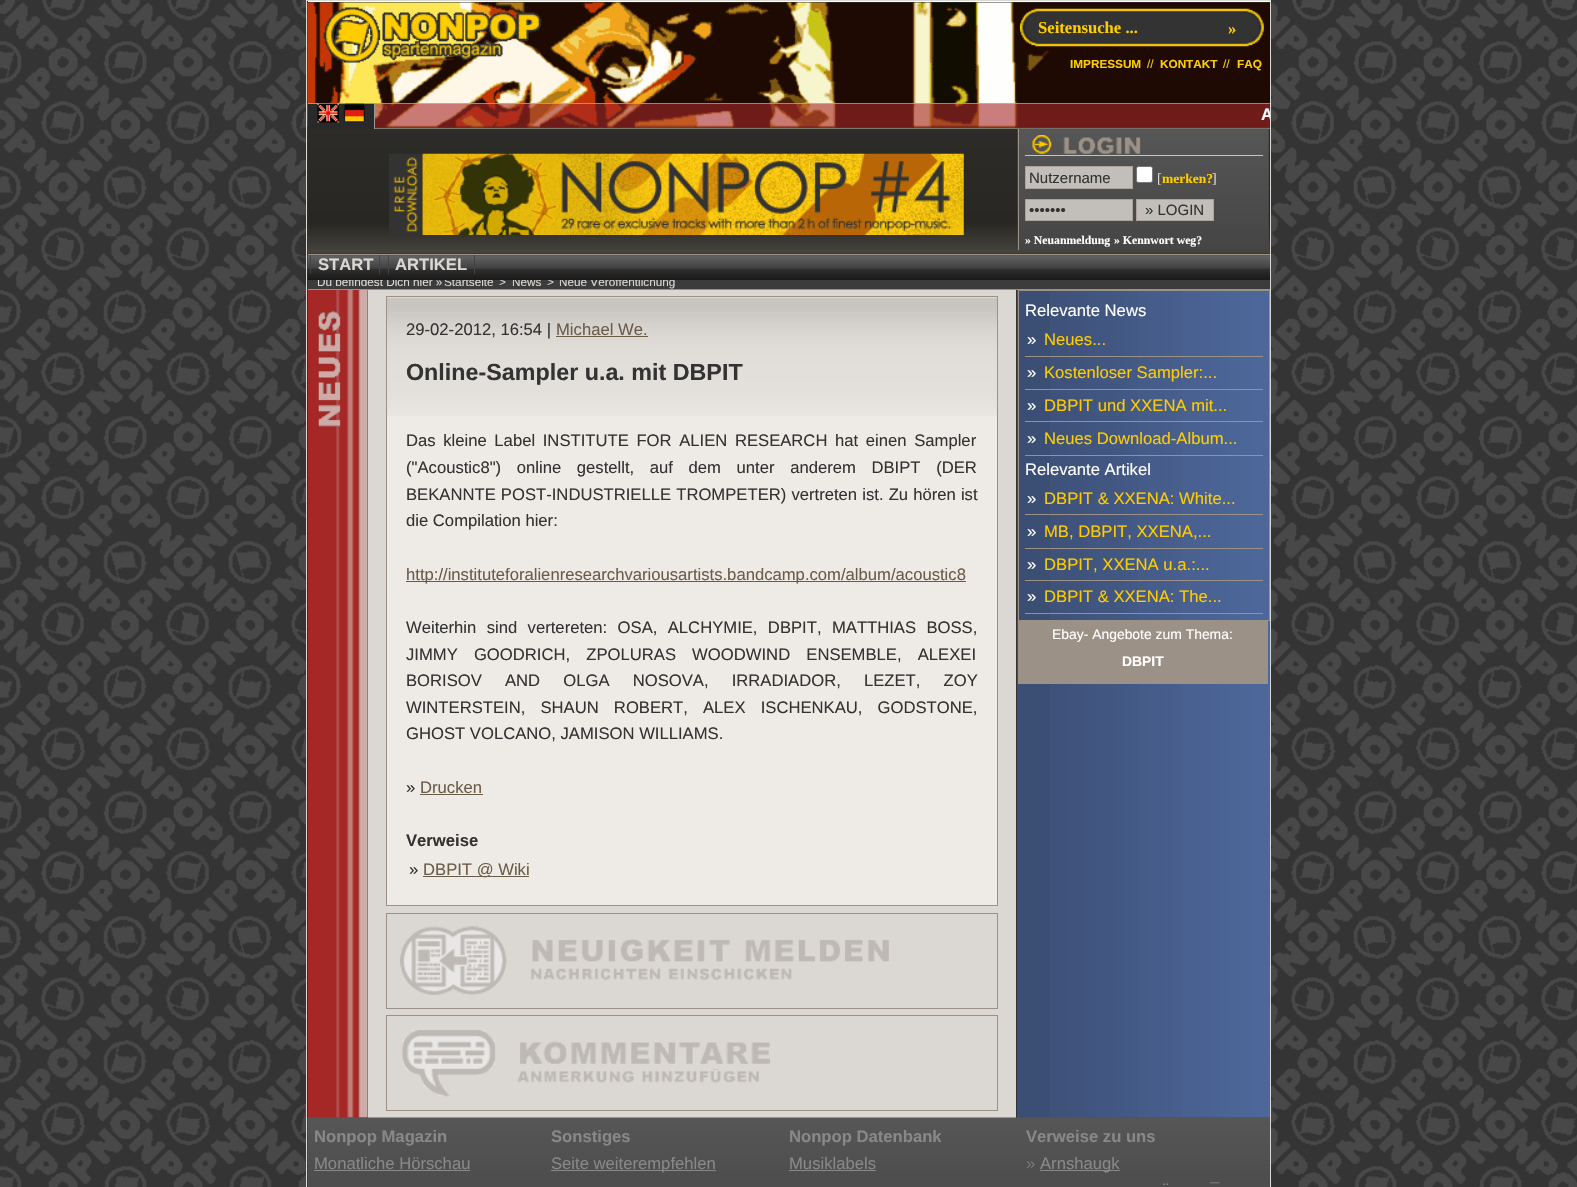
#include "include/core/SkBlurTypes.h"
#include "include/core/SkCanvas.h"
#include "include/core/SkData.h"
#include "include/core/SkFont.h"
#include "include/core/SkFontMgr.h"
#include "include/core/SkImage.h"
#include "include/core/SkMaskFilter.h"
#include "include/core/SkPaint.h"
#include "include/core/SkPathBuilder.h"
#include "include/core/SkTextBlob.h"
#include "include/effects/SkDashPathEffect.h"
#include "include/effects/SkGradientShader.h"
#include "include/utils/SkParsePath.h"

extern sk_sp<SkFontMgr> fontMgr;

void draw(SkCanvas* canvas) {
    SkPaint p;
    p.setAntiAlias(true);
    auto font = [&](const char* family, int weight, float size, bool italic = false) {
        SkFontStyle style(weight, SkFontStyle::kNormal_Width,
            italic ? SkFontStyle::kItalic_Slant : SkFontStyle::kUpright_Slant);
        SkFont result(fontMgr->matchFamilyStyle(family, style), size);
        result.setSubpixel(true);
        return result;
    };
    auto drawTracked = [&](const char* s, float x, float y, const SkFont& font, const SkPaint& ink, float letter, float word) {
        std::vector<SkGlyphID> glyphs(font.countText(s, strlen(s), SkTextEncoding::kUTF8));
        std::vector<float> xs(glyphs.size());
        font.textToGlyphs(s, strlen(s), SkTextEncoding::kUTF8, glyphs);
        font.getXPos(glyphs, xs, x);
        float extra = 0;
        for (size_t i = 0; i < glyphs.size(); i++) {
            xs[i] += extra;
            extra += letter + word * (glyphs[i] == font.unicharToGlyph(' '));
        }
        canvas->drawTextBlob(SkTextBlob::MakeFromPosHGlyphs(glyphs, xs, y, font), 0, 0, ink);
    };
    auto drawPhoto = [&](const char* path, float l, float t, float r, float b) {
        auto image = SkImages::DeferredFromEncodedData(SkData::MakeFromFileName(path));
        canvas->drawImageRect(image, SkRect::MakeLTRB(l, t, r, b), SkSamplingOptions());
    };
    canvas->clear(0xFFFFFFFF);
    drawPhoto("media/1.png", 0, 0, 1577, 1187);
    p.setColor(0xFF333333);
    canvas->drawRect(SkRect::MakeLTRB(307, 1, 308, 1187), p);
    p.setStyle(SkPaint::kStroke_Style);
    p.setStrokeWidth(1);
    p.setColor(0xFFDBD7D2);
    canvas->drawRect(SkRect::MakeLTRB(306.5f, 0.5f, 1270.5f, 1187.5f), p);
    p.setStyle(SkPaint::kFill_Style);
    p.setColor(0xFF333333);
    canvas->drawRect(SkRect::MakeLTRB(308, 2, 1270, 254), p);
    drawPhoto("media/2.png", 307, 2, 1270, 128);
    p.setColor(0xFFFFFFFF);
    canvas->drawRect(SkRect::MakeLTRB(308, 1, 1270, 2), p);
    p.setColor(0xFF9B9186);
    canvas->drawRect(SkRect::MakeLTRB(375, 128, 1270, 129), p);
    drawPhoto("media/3.png", 323, 7, 542, 63);
    drawPhoto("media/4.png", 1020, 8, 1264, 47);
    auto font1 = font("Liberation Serif", 700, 16.65f);
    p.setColor(0xFFFFCC00);
    canvas->drawString("Seitensuche ...", 1038, 33, font1, p);
    canvas->drawString("»", 1228, 34, font1, p);
    auto font2 = font("Liberation Sans", 700, 11.75f);
    canvas->drawString("IMPRESSUM", 1070, 68, font2, p);
    auto font3 = font("Liberation Sans", 400, 11.75f);
    canvas->drawString("//", 1147, 68, font3, p);
    canvas->drawString("KONTAKT", 1160, 68, font2, p);
    canvas->drawString("//", 1223, 68, font3, p);
    canvas->drawString("FAQ", 1237, 68, font2, p);
    drawPhoto("media/7.png", 307, 128, 1270, 254);
    {
        const struct { float l, t, r, b; SkColor color; } items[] = {
            {308, 104, 374, 129, 0xFF292929},
            {308, 103, 375, 104, 0xFF999999},
            {374, 103, 375, 129, 0xFF999999},
        };
        for (auto [l, t, r, b, color] : items) {
            p.setColor(color);
            canvas->drawRect(SkRect::MakeLTRB(l, t, r, b), p);
        }
    }
    drawPhoto("media/5.png", 317, 103, 339, 123);
    drawPhoto("media/6.png", 343, 103, 365, 123);
    p.setColor(0x99A52726);
    canvas->drawRect(SkRect::MakeLTRB(375, 103, 1270, 128), p);
    p.setColor(0x99FFCC00);
    canvas->drawRect(SkRect::MakeLTRB(375, 103, 1270, 104), p);
    canvas->save();
    canvas->clipRect(SkRect::MakeLTRB(376, 105, 1270, 128));
    auto font4 = font("Liberation Sans", 700, 16.65f);
    p.setColor(0xFFFFFFFF);
    canvas->drawString("A", 1261, 120, font4, p);
    canvas->restore();
    drawPhoto("media/8.png", 389, 153, 964, 235);
    drawPhoto("media/9.png", 1017, 128, 1269, 250);
    p.setColor(0xFF9B9186);
    canvas->drawRect(SkRect::MakeLTRB(1018, 129, 1019, 250), p);
    p.setColor(0xFFFFCC00);
    canvas->drawRect(SkRect::MakeLTRB(1025, 155, 1263, 156), p);
    drawPhoto("media/10.png", 1032, 135, 1141, 154);
    p.setColor(0xFFC2BFBB);
    canvas->drawRect(SkRect::MakeLTRB(1025.5f, 166.5f, 1132.5f, 188.5f), p);
    p.setStyle(SkPaint::kStroke_Style);
    p.setColor(0xFFACA49C);
    canvas->drawRect(SkRect::MakeLTRB(1025.5f, 166.5f, 1132.5f, 188.5f), p);
    auto font5 = font("Liberation Sans", 400, 15);
    p.setStyle(SkPaint::kFill_Style);
    p.setColor(0xFF333333);
    canvas->drawString("Nutzername", 1029, 183, font5, p);
    p.setColor(0xFFFFFFFF);
    canvas->drawRoundRect(SkRect::MakeLTRB(1136.5f, 166.5f, 1152.5f, 182.5f), 2, 2, p);
    p.setStyle(SkPaint::kStroke_Style);
    p.setColor(0xFF767676);
    canvas->drawRoundRect(SkRect::MakeLTRB(1136.5f, 166.5f, 1152.5f, 182.5f), 2, 2, p);
    auto font6 = font("Liberation Serif", 400, 13.9f);
    p.setStyle(SkPaint::kFill_Style);
    p.setColor(0xFFDBD7D2);
    canvas->drawString("[", 1157, 183, font6, p);
    auto font7 = font("Liberation Serif", 700, 13.5f);
    p.setColor(0xFFFFCC00);
    canvas->drawString("merken?", 1162, 183, font7, p);
    p.setColor(0xFFDBD7D2);
    canvas->drawString("]", 1212, 183, font6, p);
    p.setColor(0xFFC2BFBB);
    canvas->drawRect(SkRect::MakeLTRB(1025.5f, 199.5f, 1132.5f, 220.5f), p);
    p.setStyle(SkPaint::kStroke_Style);
    p.setColor(0xFFACA49C);
    canvas->drawRect(SkRect::MakeLTRB(1025.5f, 199.5f, 1132.5f, 220.5f), p);
    p.setStyle(SkPaint::kFill_Style);
    p.setColor(0xFF333333);
    canvas->drawString("•••••••", 1029, 215, font5, p);
    p.setColor(0xFFC2BFBB);
    canvas->drawRect(SkRect::MakeLTRB(1136.5f, 199.5f, 1213.5f, 220.5f), p);
    p.setStyle(SkPaint::kStroke_Style);
    p.setColor(0xFFACA49C);
    canvas->drawRect(SkRect::MakeLTRB(1136.5f, 199.5f, 1213.5f, 220.5f), p);
    p.setStyle(SkPaint::kFill_Style);
    p.setColor(0xFF333333);
    canvas->drawString("» LOGIN", 1145, 215, font5, p);
    auto font8 = font("Liberation Serif", 700, 11.75f);
    p.setColor(0xFFFFFFFF);
    canvas->drawString("» Neuanmeldung", 1025, 244, font8, p);
    canvas->drawString("» Kennwort weg?", 1114, 244, font8, p);
    p.setColor(0xFF3C3C3C);
    canvas->drawRect(SkRect::MakeLTRB(308, 280, 1270, 289), p);
    p.setColor(0xFFDBD7D2);
    {
        const struct { const char* s; float x, y; } items[] = {
            {"Du befindest Dich hier »", 317, 286},
            {"Startseite", 444, 286},
            {">", 499, 286},
            {"News", 512, 286},
            {">", 547, 286},
            {"Neue Veröffentlichung", 559, 286},
        };
        for (auto [s, x, y] : items) {
            canvas->drawString(s, x, y, font3, p);
        }
    }
    drawPhoto("media/11.png", 307, 253, 1270, 280);
    p.setColor(0xFF9B9186);
    canvas->drawRect(SkRect::MakeLTRB(308, 254, 1270, 255), p);
    p.setColor(0xFFDBD7D2);
    canvas->drawString("START", 318, 270, font4, p);
    p.setColor(0xFF444444);
    canvas->drawRect(SkRect::MakeLTRB(379, 255, 380, 274), p);
    canvas->drawRect(SkRect::MakeLTRB(310, 255, 311, 274), p);
    p.setColor(0xFFDBD7D2);
    canvas->drawString("ARTIKEL", 395, 270, font4, p);
    {
        const struct { float l, t, r, b; SkColor color; } items[] = {
            {474, 255, 475, 274, 0xFF444444},
            {388, 255, 389, 274, 0xFF444444},
            {368, 290, 1016, 1118, 0xFFDBD7D2},
            {308, 289, 1270, 290, 0xFF9B9186},
            {308, 290, 368, 1118, 0xFFA52726},
        };
        for (auto [l, t, r, b, color] : items) {
            p.setColor(color);
            canvas->drawRect(SkRect::MakeLTRB(l, t, r, b), p);
        }
    }
    drawPhoto("media/12.png", 336, 290, 368, 1118);
    drawPhoto("media/13.png", 318, 311, 341, 427);
    p.setColor(0xFFEEEBE7);
    canvas->drawRect(SkRect::MakeLTRB(387, 297, 997, 905), p);
    drawPhoto("media/14.png", 387, 297, 997, 416);
    p.setStyle(SkPaint::kStroke_Style);
    p.setColor(0xFF9B9186);
    canvas->drawRect(SkRect::MakeLTRB(386.5f, 296.5f, 997.5f, 905.5f), p);
    auto font9 = font("Liberation Sans", 400, 16.65f);
    p.setStyle(SkPaint::kFill_Style);
    p.setColor(0xFF333333);
    canvas->drawString("29-02-2012, 16:54 |", 406, 335, font9, p);
    p.setColor(0xFF6B5C49);
    canvas->drawString("Michael We.", 556, 335, font9, p);
    canvas->drawRect(SkRect::MakeLTRB(556, 336, 648, 337), p);
    auto font10 = font("Liberation Sans", 700, 23.3f);
    p.setColor(0xFF333333);
    canvas->drawString("Online-Sampler u.a. mit DBPIT", 406, 380, font10, p);
    drawTracked("Das kleine Label INSTITUTE FOR ALIEN RESEARCH hat einen Sampler", 406, 446, font9, p, 0, 3);
    drawTracked("(\"Acoustic8\") online gestellt, auf dem unter anderem DBIPT (DER", 406, 473, font9, p, 0, 11);
    drawTracked("BEKANNTE POST-INDUSTRIELLE TROMPETER) vertreten ist. Zu hören ist", 406, 500, font9, p, 0, 0.5f);
    canvas->drawString("die Compilation hier:", 406, 526, font9, p);
    p.setColor(0xFF6B5C49);
    canvas->drawRect(SkRect::MakeLTRB(406, 581, 966, 582), p);
    canvas->drawString("http://instituteforalienresearchvariousartists.bandcamp.com/album/acoustic8", 406, 580, font9, p);
    p.setColor(0xFF333333);
    drawTracked("Weiterhin sind vertereten: OSA, ALCHYMIE, DBPIT, MATTHIAS BOSS,", 406, 633, font9, p, 0, 5.75f);
    drawTracked("JIMMY GOODRICH, ZPOLURAS WOODWIND ENSEMBLE, ALEXEI", 406, 660, font9, p, 0, 11.5f);
    drawTracked("BORISOV AND OLGA NOSOVA, IRRADIADOR, LEZET, ZOY", 406, 686, font9, p, 0, 18.5f);
    drawTracked("WINTERSTEIN, SHAUN ROBERT, ALEX ISCHENKAU, GODSTONE,", 406, 713, font9, p, 0, 10.5f);
    canvas->drawString("GHOST VOLCANO, JAMISON WILLIAMS.", 406, 739, font9, p);
    canvas->drawString("»", 406, 793, font9, p);
    p.setColor(0xFF6B5C49);
    canvas->drawString("Drucken", 420, 793, font9, p);
    canvas->drawRect(SkRect::MakeLTRB(420, 794, 483, 795), p);
    p.setColor(0xFF333333);
    canvas->drawString("Verweise", 406, 846, font4, p);
    canvas->drawString("»", 409, 875, font9, p);
    p.setColor(0xFF6B5C49);
    canvas->drawRect(SkRect::MakeLTRB(423, 876, 529, 877), p);
    canvas->drawString("DBPIT @ Wiki", 423, 875, font9, p);
    p.setStyle(SkPaint::kStroke_Style);
    p.setColor(0xFF9B9186);
    canvas->drawRect(SkRect::MakeLTRB(386.5f, 913.5f, 997.5f, 1008.5f), p);
    drawPhoto("media/15.png", 400, 926, 889, 995);
    canvas->drawRect(SkRect::MakeLTRB(386.5f, 1015.5f, 997.5f, 1110.5f), p);
    drawPhoto("media/16.png", 402, 1030, 770, 1097);
    p.setStyle(SkPaint::kFill_Style);
    p.setColor(0xFF3B4E74);
    canvas->drawRect(SkRect::MakeLTRB(1017, 290, 1270, 1118), p);
    drawPhoto("media/17.png", 1050, 291, 1270, 1118);
    p.setColor(0xFF333333);
    canvas->drawRect(SkRect::MakeLTRB(1016, 290, 1017, 1118), p);
    p.setStyle(SkPaint::kStroke_Style);
    p.setColor(0xFF9B9186);
    canvas->drawRect(SkRect::MakeLTRB(1018.5f, 290.5f, 1269.5f, 620.5f), p);
    p.setStyle(SkPaint::kFill_Style);
    p.setColor(0xFFFFFFFF);
    canvas->drawString("Relevante News", 1025, 316, font9, p);
    p.setColor(0xFF9B9186);
    canvas->drawRect(SkRect::MakeLTRB(1025, 356, 1263, 357), p);
    p.setColor(0xFFFFFFFF);
    canvas->drawString("»", 1027, 345, font9, p);
    p.setColor(0xFFFFCC00);
    canvas->drawString("Neues...", 1044, 345, font9, p);
    p.setColor(0xFF9B9186);
    canvas->drawRect(SkRect::MakeLTRB(1025, 389, 1263, 390), p);
    p.setColor(0xFFFFFFFF);
    canvas->drawString("»", 1027, 378, font9, p);
    p.setColor(0xFFFFCC00);
    canvas->drawString("Kostenloser Sampler:...", 1044, 378, font9, p);
    p.setColor(0xFF9B9186);
    canvas->drawRect(SkRect::MakeLTRB(1025, 421, 1263, 422), p);
    p.setColor(0xFFFFFFFF);
    canvas->drawString("»", 1027, 411, font9, p);
    p.setColor(0xFFFFCC00);
    canvas->drawString("DBPIT und XXENA mit...", 1044, 411, font9, p);
    p.setColor(0xFF9B9186);
    canvas->drawRect(SkRect::MakeLTRB(1025, 455, 1263, 456), p);
    p.setColor(0xFFFFFFFF);
    canvas->drawString("»", 1027, 444, font9, p);
    p.setColor(0xFFFFCC00);
    canvas->drawString("Neues Download-Album...", 1044, 444, font9, p);
    p.setColor(0xFFFFFFFF);
    canvas->drawString("Relevante Artikel", 1025, 475, font9, p);
    p.setColor(0xFF9B9186);
    canvas->drawRect(SkRect::MakeLTRB(1025, 514, 1263, 515), p);
    p.setColor(0xFFFFFFFF);
    canvas->drawString("»", 1027, 504, font9, p);
    p.setColor(0xFFFFCC00);
    canvas->drawString("DBPIT & XXENA: White...", 1044, 504, font9, p);
    p.setColor(0xFF9B9186);
    canvas->drawRect(SkRect::MakeLTRB(1025, 548, 1263, 549), p);
    p.setColor(0xFFFFFFFF);
    canvas->drawString("»", 1027, 537, font9, p);
    p.setColor(0xFFFFCC00);
    canvas->drawString("MB, DBPIT, XXENA,...", 1044, 537, font9, p);
    p.setColor(0xFF9B9186);
    canvas->drawRect(SkRect::MakeLTRB(1025, 580, 1263, 581), p);
    p.setColor(0xFFFFFFFF);
    canvas->drawString("»", 1027, 570, font9, p);
    p.setColor(0xFFFFCC00);
    canvas->drawString("DBPIT, XXENA u.a.:...", 1044, 570, font9, p);
    p.setColor(0xFF9B9186);
    canvas->drawRect(SkRect::MakeLTRB(1025, 613, 1263, 614), p);
    p.setColor(0xFFFFFFFF);
    canvas->drawString("»", 1027, 602, font9, p);
    p.setColor(0xFFFFCC00);
    canvas->drawString("DBPIT & XXENA: The...", 1044, 602, font9, p);
    p.setColor(0xFF9B9186);
    canvas->drawRect(SkRect::MakeLTRB(1018, 621, 1268, 684), p);
    auto font11 = font("Liberation Sans", 400, 13.9f);
    p.setColor(0xFFFFFFFF);
    canvas->drawString("Ebay- Angebote zum Thema:", 1052, 639, font11, p);
    auto font12 = font("Liberation Sans", 700, 13.9f);
    canvas->drawString("DBPIT", 1122, 666, font12, p);
    drawPhoto("media/18.png", 307, 1117, 1270, 1187);
    p.setColor(0xFF888888);
    canvas->drawString("Nonpop Magazin", 314, 1142, font4, p);
    canvas->drawString("Monatliche Hörschau", 314, 1169, font9, p);
    canvas->drawRect(SkRect::MakeLTRB(314, 1170, 470, 1171), p);
    canvas->drawString("Sonstiges", 551, 1142, font4, p);
    canvas->drawRect(SkRect::MakeLTRB(551, 1170, 716, 1171), p);
    canvas->drawString("Seite weiterempfehlen", 551, 1169, font9, p);
    canvas->drawString("Nonpop Datenbank", 789, 1142, font4, p);
    canvas->drawString("Musiklabels", 789, 1169, font9, p);
    canvas->drawRect(SkRect::MakeLTRB(789, 1170, 876, 1171), p);
    canvas->drawString("Verweise zu uns", 1026, 1142, font4, p);
    p.setColor(0xFF777777);
    canvas->drawString("»", 1026, 1169, font9, p);
    p.setColor(0xFF888888);
    canvas->drawRect(SkRect::MakeLTRB(1040, 1170, 1120, 1171), p);
    {
        const struct { const char* s; float x, y; } items[] = {
            {"Arnshaugk", 1040, 1169},
            {"¨", 1163, 1195},
            {"¯", 1210, 1195},
        };
        for (auto [s, x, y] : items) {
            canvas->drawString(s, x, y, font9, p);
        }
    }
}
